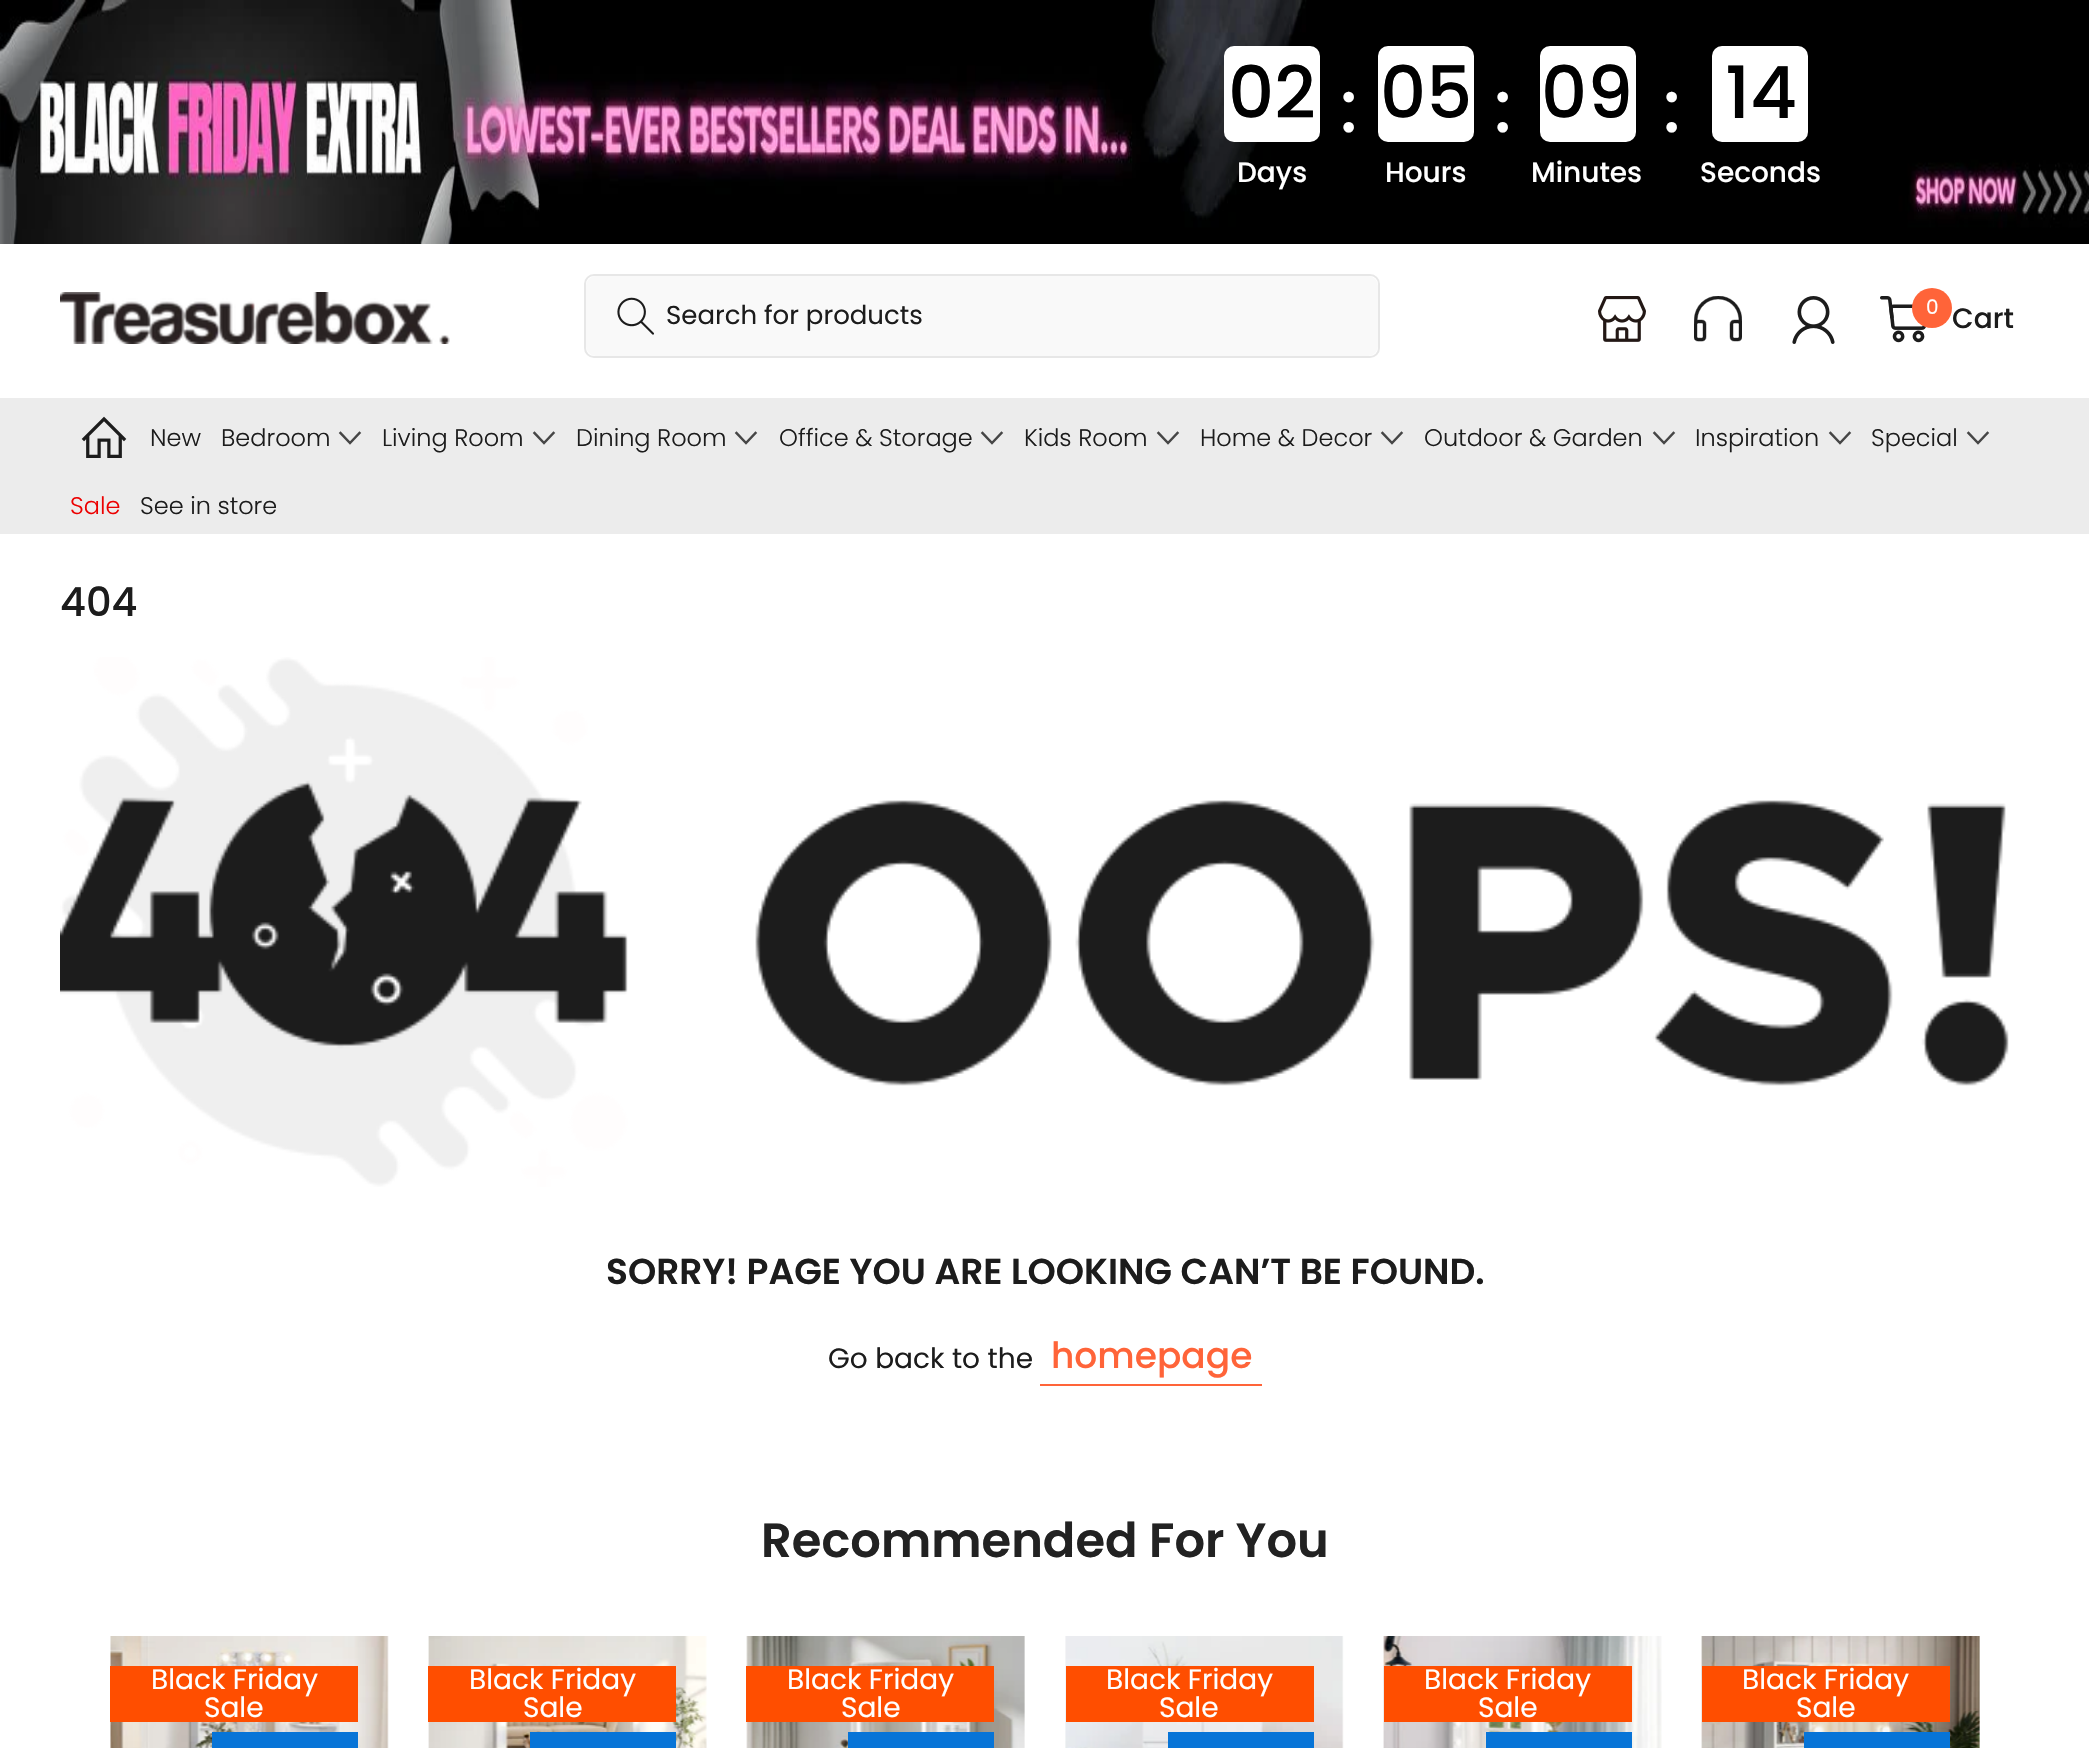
#include "include/core/SkBlurTypes.h"
#include "include/core/SkCanvas.h"
#include "include/core/SkData.h"
#include "include/core/SkFont.h"
#include "include/core/SkFontMgr.h"
#include "include/core/SkImage.h"
#include "include/core/SkMaskFilter.h"
#include "include/core/SkPaint.h"
#include "include/core/SkPathBuilder.h"
#include "include/core/SkTextBlob.h"
#include "include/effects/SkDashPathEffect.h"
#include "include/effects/SkGradientShader.h"
#include "include/utils/SkParsePath.h"

extern sk_sp<SkFontMgr> fontMgr;

void draw(SkCanvas* canvas) {
    SkPaint p;
    p.setAntiAlias(true);
    auto font = [&](const char* family, int weight, float size, bool italic = false) {
        SkFontStyle style(weight, SkFontStyle::kNormal_Width,
            italic ? SkFontStyle::kItalic_Slant : SkFontStyle::kUpright_Slant);
        SkFont result(fontMgr->matchFamilyStyle(family, style), size);
        result.setSubpixel(true);
        return result;
    };
    auto drawPhoto = [&](const char* path, float l, float t, float r, float b) {
        auto image = SkImages::DeferredFromEncodedData(SkData::MakeFromFileName(path));
        canvas->drawImageRect(image, SkRect::MakeLTRB(l, t, r, b), SkSamplingOptions());
    };
    canvas->clear(0xFFFFFFFF);
    drawPhoto("media/1.png", 0, 0, 2089, 244);
    p.setColor(0xFFFFFFFF);
    canvas->drawRoundRect(SkRect::MakeLTRB(1224, 46, 1320, 142), 10, 10, p);
    auto font1 = font("Poppins", 500, 72);
    p.setColor(0xFF000000);
    canvas->drawString("02", 1228, 118, font1, p);
    auto font2 = font("Poppins", 500, 28);
    p.setColor(0xFFFFFFFF);
    canvas->drawString("Days", 1237, 182, font2, p);
    canvas->drawString(":", 1340, 132, font1, p);
    canvas->drawRoundRect(SkRect::MakeLTRB(1378, 46, 1474, 142), 10, 10, p);
    p.setColor(0xFF000000);
    canvas->drawString("05", 1380, 118, font1, p);
    p.setColor(0xFFFFFFFF);
    canvas->drawString("Hours", 1385, 182, font2, p);
    canvas->drawString(":", 1494, 132, font1, p);
    canvas->drawRoundRect(SkRect::MakeLTRB(1540, 46, 1636, 142), 10, 10, p);
    p.setColor(0xFF000000);
    canvas->drawString("09", 1541, 118, font1, p);
    p.setColor(0xFFFFFFFF);
    canvas->drawString("Minutes", 1531, 182, font2, p);
    canvas->drawString(":", 1663, 132, font1, p);
    canvas->drawRoundRect(SkRect::MakeLTRB(1712, 46, 1808, 142), 10, 10, p);
    p.setColor(0xFF000000);
    canvas->drawString("14", 1725, 118, font1, p);
    p.setColor(0xFFFFFFFF);
    canvas->drawString("Seconds", 1700, 182, font2, p);
    drawPhoto("media/2.png", 60, 292, 450, 344);
    p.setStyle(SkPaint::kStroke_Style);
    p.setStrokeWidth(2);
    p.setColor(0xFFE7E7E7);
    canvas->drawRoundRect(SkRect::MakeLTRB(585, 275, 1379, 357), 9, 9, p);
    p.setStyle(SkPaint::kFill_Style);
    p.setColor(0xFFF9F9F9);
    canvas->drawRoundRect(SkRect::MakeLTRB(586, 276, 1378, 356), 10, 10, p);
    drawPhoto("media/3.png", 617, 297, 654, 335);
    auto font3 = font("Poppins", 400, 26);
    p.setColor(0xFF1C1C1C);
    canvas->drawString("Search for products", 666, 324, font3, p);
    drawPhoto("media/4.png", 1598, 296, 1646, 342);
    drawPhoto("media/5.png", 1694, 296, 1742, 342);
    drawPhoto("media/6.png", 1792, 296, 1835, 344);
    drawPhoto("media/7.png", 1880, 296, 1926, 343);
    p.setColor(0xFFFF6439);
    canvas->drawCircle(1932, 308, 20, p);
    auto font4 = font("Poppins", 400, 20);
    p.setColor(0xFFFFFFFF);
    canvas->drawString("0", 1926, 314, font4, p);
    p.setColor(0xFF1C1C1C);
    canvas->drawString("Cart", 1952, 328, font2, p);
    p.setColor(0xFFECECEC);
    canvas->drawRect(SkRect::MakeLTRB(0, 398, 2089, 534), p);
    drawPhoto("media/8.png", 81, 416, 127, 458);
    auto font5 = font("Poppins", 300, 24);
    p.setColor(0xFF1C1C1C);
    canvas->drawString("New", 150, 446, font5, p);
    canvas->drawString("Bedroom", 221, 446, font5, p);
    p.setStyle(SkPaint::kStroke_Style);
    p.setStrokeWidth(2.5f);
    p.setStrokeCap(SkPaint::kSquare_Cap);
    p.setColor(0xFF464646);
    canvas->drawPath(SkPathBuilder().moveTo(359.5f, 433).lineTo(350, 443).lineTo(340.5f, 433).detach(), p);
    p.setStyle(SkPaint::kFill_Style);
    p.setColor(0xFF1C1C1C);
    canvas->drawString("Living Room", 382, 446, font5, p);
    p.setStyle(SkPaint::kStroke_Style);
    p.setColor(0xFF464646);
    canvas->drawPath(SkPathBuilder().moveTo(553.5f, 433).lineTo(544, 443).lineTo(534.5f, 433).detach(), p);
    p.setStyle(SkPaint::kFill_Style);
    p.setColor(0xFF1C1C1C);
    canvas->drawString("Dining Room", 576, 446, font5, p);
    p.setStyle(SkPaint::kStroke_Style);
    p.setColor(0xFF464646);
    canvas->drawPath(SkPathBuilder().moveTo(755.5f, 433).lineTo(746, 443).lineTo(736.5f, 433).detach(), p);
    p.setStyle(SkPaint::kFill_Style);
    p.setColor(0xFF1C1C1C);
    canvas->drawString("Office & Storage", 779, 446, font5, p);
    p.setStyle(SkPaint::kStroke_Style);
    p.setColor(0xFF464646);
    canvas->drawPath(SkPathBuilder().moveTo(1001.5f, 433).lineTo(992, 443).lineTo(982.5f, 433).detach(), p);
    p.setStyle(SkPaint::kFill_Style);
    p.setColor(0xFF1C1C1C);
    canvas->drawString("Kids Room", 1024, 446, font5, p);
    p.setStyle(SkPaint::kStroke_Style);
    p.setColor(0xFF464646);
    canvas->drawPath(SkPathBuilder().moveTo(1177.5f, 433).lineTo(1168, 443).lineTo(1158.5f, 433).detach(), p);
    p.setStyle(SkPaint::kFill_Style);
    p.setColor(0xFF1C1C1C);
    canvas->drawString("Home & Decor", 1200, 446, font5, p);
    p.setStyle(SkPaint::kStroke_Style);
    p.setColor(0xFF464646);
    canvas->drawPath(SkPathBuilder().moveTo(1401.5f, 433).lineTo(1392, 443).lineTo(1382.5f, 433).detach(), p);
    p.setStyle(SkPaint::kFill_Style);
    p.setColor(0xFF1C1C1C);
    canvas->drawString("Outdoor & Garden", 1424, 446, font5, p);
    p.setStyle(SkPaint::kStroke_Style);
    p.setColor(0xFF464646);
    canvas->drawPath(SkPathBuilder().moveTo(1673.5f, 433).lineTo(1664, 443).lineTo(1654.5f, 433).detach(), p);
    p.setStyle(SkPaint::kFill_Style);
    p.setColor(0xFF1C1C1C);
    canvas->drawString("Inspiration", 1695, 446, font5, p);
    p.setStyle(SkPaint::kStroke_Style);
    p.setColor(0xFF464646);
    canvas->drawPath(SkPathBuilder().moveTo(1849.5f, 433).lineTo(1840, 443).lineTo(1830.5f, 433).detach(), p);
    p.setStyle(SkPaint::kFill_Style);
    p.setColor(0xFF1C1C1C);
    canvas->drawString("Special", 1871, 446, font5, p);
    p.setStyle(SkPaint::kStroke_Style);
    p.setColor(0xFF464646);
    canvas->drawPath(SkPathBuilder().moveTo(1987.5f, 433).lineTo(1978, 443).lineTo(1968.5f, 433).detach(), p);
    p.setStyle(SkPaint::kFill_Style);
    p.setColor(0xFFEC0101);
    canvas->drawString("Sale", 70, 514, font5, p);
    p.setColor(0xFF1C1C1C);
    canvas->drawString("See in store", 140, 514, font5, p);
    auto font6 = font("Poppins", 500, 40);
    canvas->drawString("404", 60, 616, font6, p);
    drawPhoto("media/9.png", 60, 657, 2009, 1187);
    auto font7 = font("Poppins", 600, 36);
    canvas->drawString("SORRY! PAGE YOU ARE LOOKING CAN’T BE FOUND.", 606, 1284, font7, p);
    auto font8 = font("Poppins", 400, 28);
    canvas->drawString("Go back to the", 828, 1368, font8, p);
    auto font9 = font("Poppins", 500, 36);
    p.setColor(0xFFFF6439);
    canvas->drawString("homepage", 1051, 1368, font9, p);
    canvas->drawRect(SkRect::MakeLTRB(1040, 1384, 1262, 1386), p);
    auto font10 = font("Poppins", 600, 48);
    p.setColor(0xFF222222);
    canvas->drawString("Recommended For You", 761, 1557, font10, p);
    drawPhoto("media/10.png", 110, 1636, 389, 1748);
    p.setColor(0xFFFF4E00);
    canvas->drawRect(SkRect::MakeLTRB(110, 1666, 358, 1722), p);
    p.setColor(0xFFFFFFFF);
    canvas->drawString("Black Friday", 151, 1689, font8, p);
    canvas->drawString("Sale", 204, 1717, font8, p);
    p.setColor(0xFF0774D7);
    canvas->drawRect(SkRect::MakeLTRB(212, 1732, 358, 1748), p);
    drawPhoto("media/11.png", 428, 1636, 707, 1748);
    p.setColor(0xFFFF4E00);
    canvas->drawRect(SkRect::MakeLTRB(428, 1666, 676, 1722), p);
    p.setColor(0xFFFFFFFF);
    canvas->drawString("Black Friday", 469, 1689, font8, p);
    canvas->drawString("Sale", 523, 1717, font8, p);
    p.setColor(0xFF0774D7);
    canvas->drawRect(SkRect::MakeLTRB(530, 1732, 676, 1748), p);
    drawPhoto("media/12.png", 746, 1636, 1025, 1748);
    p.setColor(0xFFFF4E00);
    canvas->drawRect(SkRect::MakeLTRB(746, 1666, 994, 1722), p);
    p.setColor(0xFFFFFFFF);
    canvas->drawString("Black Friday", 787, 1689, font8, p);
    canvas->drawString("Sale", 841, 1717, font8, p);
    p.setColor(0xFF0774D7);
    canvas->drawRect(SkRect::MakeLTRB(848, 1732, 994, 1748), p);
    drawPhoto("media/13.png", 1065, 1636, 1344, 1748);
    p.setColor(0xFFFF4E00);
    canvas->drawRect(SkRect::MakeLTRB(1066, 1666, 1314, 1722), p);
    p.setColor(0xFFFFFFFF);
    canvas->drawString("Black Friday", 1106, 1689, font8, p);
    canvas->drawString("Sale", 1159, 1717, font8, p);
    p.setColor(0xFF0774D7);
    canvas->drawRect(SkRect::MakeLTRB(1168, 1732, 1314, 1748), p);
    drawPhoto("media/14.png", 1383, 1636, 1662, 1748);
    p.setColor(0xFFFF4E00);
    canvas->drawRect(SkRect::MakeLTRB(1384, 1666, 1632, 1722), p);
    p.setColor(0xFFFFFFFF);
    canvas->drawString("Black Friday", 1424, 1689, font8, p);
    canvas->drawString("Sale", 1478, 1717, font8, p);
    p.setColor(0xFF0774D7);
    canvas->drawRect(SkRect::MakeLTRB(1486, 1732, 1632, 1748), p);
    drawPhoto("media/15.png", 1701, 1636, 1980, 1748);
    p.setColor(0xFFFF4E00);
    canvas->drawRect(SkRect::MakeLTRB(1702, 1666, 1950, 1722), p);
    p.setColor(0xFFFFFFFF);
    canvas->drawString("Black Friday", 1742, 1689, font8, p);
    canvas->drawString("Sale", 1796, 1717, font8, p);
    p.setColor(0xFF0774D7);
    canvas->drawRect(SkRect::MakeLTRB(1804, 1732, 1950, 1748), p);
}
